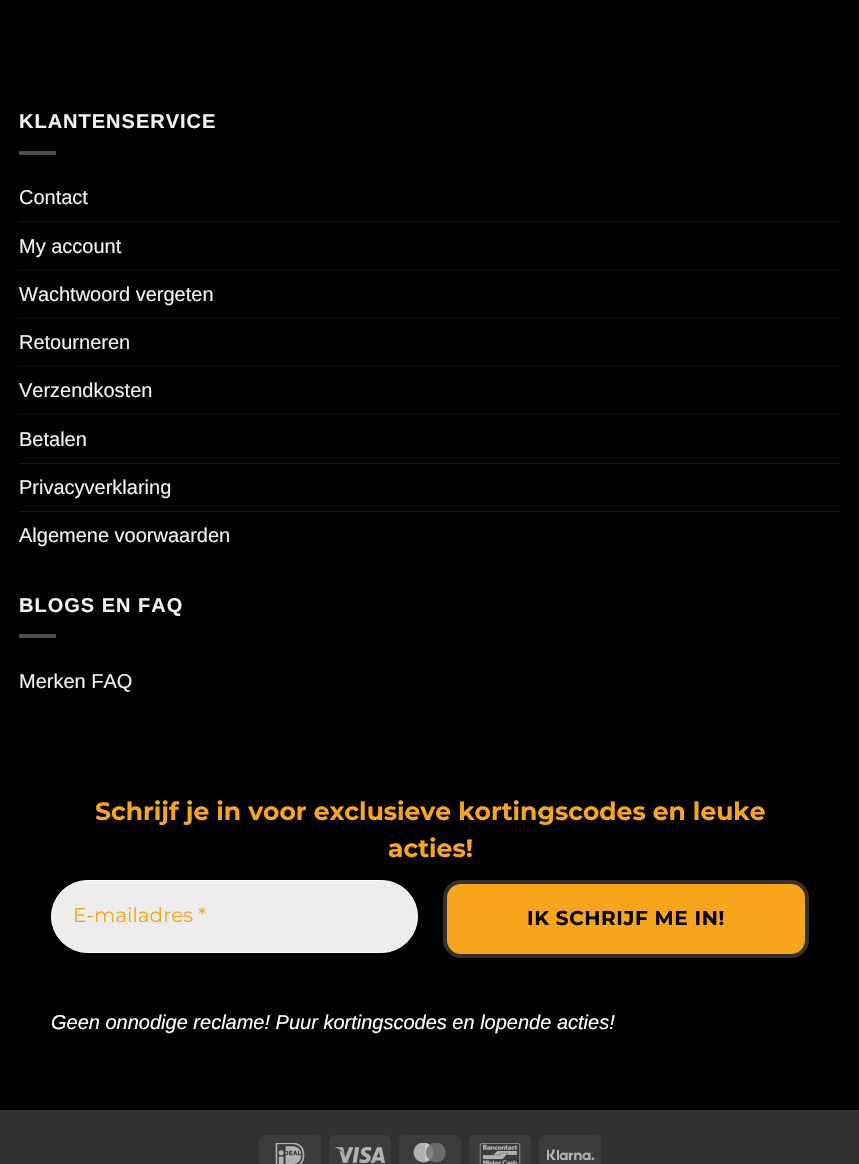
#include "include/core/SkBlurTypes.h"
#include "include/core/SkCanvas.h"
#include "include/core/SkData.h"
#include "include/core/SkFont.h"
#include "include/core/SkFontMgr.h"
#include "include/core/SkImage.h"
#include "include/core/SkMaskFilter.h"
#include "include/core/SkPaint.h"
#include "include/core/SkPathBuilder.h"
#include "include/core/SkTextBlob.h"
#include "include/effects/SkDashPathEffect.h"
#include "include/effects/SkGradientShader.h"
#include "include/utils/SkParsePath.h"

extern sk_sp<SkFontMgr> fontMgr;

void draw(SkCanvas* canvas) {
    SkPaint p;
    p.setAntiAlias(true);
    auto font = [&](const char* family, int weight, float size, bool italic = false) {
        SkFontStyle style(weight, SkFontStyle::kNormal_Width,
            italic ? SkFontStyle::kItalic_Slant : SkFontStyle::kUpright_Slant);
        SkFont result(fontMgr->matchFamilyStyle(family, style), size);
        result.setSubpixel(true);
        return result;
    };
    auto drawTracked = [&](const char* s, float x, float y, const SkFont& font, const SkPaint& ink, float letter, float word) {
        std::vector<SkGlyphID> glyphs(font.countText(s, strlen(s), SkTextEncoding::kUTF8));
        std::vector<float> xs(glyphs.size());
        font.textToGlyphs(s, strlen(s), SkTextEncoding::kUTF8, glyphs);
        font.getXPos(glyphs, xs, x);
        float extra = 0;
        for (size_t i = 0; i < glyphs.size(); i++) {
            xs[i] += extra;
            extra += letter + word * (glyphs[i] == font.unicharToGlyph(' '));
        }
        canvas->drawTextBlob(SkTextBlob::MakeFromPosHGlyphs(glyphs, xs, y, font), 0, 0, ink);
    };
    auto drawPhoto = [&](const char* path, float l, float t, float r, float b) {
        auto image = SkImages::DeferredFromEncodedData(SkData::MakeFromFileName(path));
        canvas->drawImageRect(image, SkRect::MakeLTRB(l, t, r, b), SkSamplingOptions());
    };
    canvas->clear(0xFF000000);
    auto font1 = font("Liberation Sans", 700, 20);
    p.setColor(0xFFF1F1F1);
    drawTracked("KLANTENSERVICE", 19, 128, font1, p, 1, 0);
    p.setColor(0xFF4D4D4D);
    canvas->drawRect(SkRect::MakeLTRB(19, 151, 56, 155), p);
    auto font2 = font("Liberation Sans", 400, 20);
    p.setColor(0xFFF1F1F1);
    canvas->drawString("Contact", 19, 204, font2, p);
    p.setColor(0xFF141414);
    canvas->drawRect(SkRect::MakeLTRB(19, 221, 841, 222), p);
    p.setColor(0xFFF1F1F1);
    canvas->drawString("My account", 19, 253, font2, p);
    p.setColor(0xFF141414);
    canvas->drawRect(SkRect::MakeLTRB(19, 270, 841, 271), p);
    p.setColor(0xFFF1F1F1);
    canvas->drawString("Wachtwoord vergeten", 19, 301, font2, p);
    p.setColor(0xFF141414);
    canvas->drawRect(SkRect::MakeLTRB(19, 318, 841, 319), p);
    p.setColor(0xFFF1F1F1);
    canvas->drawString("Retourneren", 19, 349, font2, p);
    p.setColor(0xFF141414);
    canvas->drawRect(SkRect::MakeLTRB(19, 366, 841, 367), p);
    p.setColor(0xFFF1F1F1);
    canvas->drawString("Verzendkosten", 19, 397, font2, p);
    p.setColor(0xFF141414);
    canvas->drawRect(SkRect::MakeLTRB(19, 414, 841, 415), p);
    p.setColor(0xFFF1F1F1);
    canvas->drawString("Betalen", 19, 446, font2, p);
    p.setColor(0xFF141414);
    canvas->drawRect(SkRect::MakeLTRB(19, 463, 841, 464), p);
    p.setColor(0xFFF1F1F1);
    canvas->drawString("Privacyverklaring", 19, 494, font2, p);
    p.setColor(0xFF141414);
    canvas->drawRect(SkRect::MakeLTRB(19, 511, 841, 512), p);
    p.setColor(0xFFF1F1F1);
    canvas->drawString("Algemene voorwaarden", 19, 542, font2, p);
    drawTracked("BLOGS EN FAQ", 19, 612, font1, p, 1, 0);
    p.setColor(0xFF4D4D4D);
    canvas->drawRect(SkRect::MakeLTRB(19, 634, 56, 638), p);
    p.setColor(0xFFF1F1F1);
    canvas->drawString("Merken FAQ", 19, 688, font2, p);
    auto font3 = font("Montserrat", 700, 25);
    p.setColor(0xFFF9A519);
    canvas->drawString("Schrijf je in voor exclusieve kortingscodes en leuke", 95, 820, font3, p);
    canvas->drawString("acties!", 388, 857, font3, p);
    p.setColor(0xFFEDEDED);
    canvas->drawRoundRect(SkRect::MakeLTRB(51.5f, 880.5f, 417.5f, 952.5f), 36, 36, p);
    p.setStyle(SkPaint::kStroke_Style);
    p.setStrokeWidth(1);
    p.setColor(0xFFFFFFFF);
    canvas->drawRoundRect(SkRect::MakeLTRB(51.5f, 880.5f, 417.5f, 952.5f), 36, 36, p);
    auto font4 = font("Montserrat", 400, 20);
    p.setStyle(SkPaint::kFill_Style);
    p.setColor(0xFFF9A519);
    canvas->drawString("E-mailadres *", 73, 922, font4, p);
    canvas->drawRoundRect(SkRect::MakeLTRB(445, 882, 807, 956), 16, 16, p);
    p.setStyle(SkPaint::kStroke_Style);
    p.setStrokeWidth(4);
    p.setColor(0xFF313131);
    canvas->drawRoundRect(SkRect::MakeLTRB(445, 882, 807, 956), 16, 16, p);
    auto font5 = font("Montserrat", 700, 20);
    p.setStyle(SkPaint::kFill_Style);
    p.setColor(0xFF000000);
    drawTracked("IK SCHRIJF ME IN!", 527, 925, font5, p, 0.6f, 0);
    auto font6 = font("Liberation Sans", 400, 20, true);
    p.setColor(0xFFFFFFFF);
    canvas->drawString("Geen onnodige reclame! Puur kortingscodes en lopende acties!", 51, 1029, font6, p);
    p.setColor(0xFF303030);
    canvas->drawRect(SkRect::MakeLTRB(0, 1110, 859, 1164), p);
    p.setColor(0xFF3C3C3C);
    canvas->drawRoundRect(SkRect::MakeLTRB(259, 1135, 321, 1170), 6, 6, p);
    drawPhoto("media/1.png", 275, 1143, 305, 1164);
    canvas->drawRoundRect(SkRect::MakeLTRB(329, 1135, 391, 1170), 6, 6, p);
    drawPhoto("media/2.png", 335, 1146, 385, 1164);
    canvas->drawRoundRect(SkRect::MakeLTRB(399, 1135, 461, 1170), 6, 6, p);
    drawPhoto("media/3.png", 413, 1143, 446, 1164);
    canvas->drawRoundRect(SkRect::MakeLTRB(469, 1135, 531, 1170), 6, 6, p);
    drawPhoto("media/4.png", 479, 1143, 521, 1164);
    canvas->drawRoundRect(SkRect::MakeLTRB(539, 1135, 601, 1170), 6, 6, p);
    drawPhoto("media/5.png", 547, 1149, 595, 1161);
}
